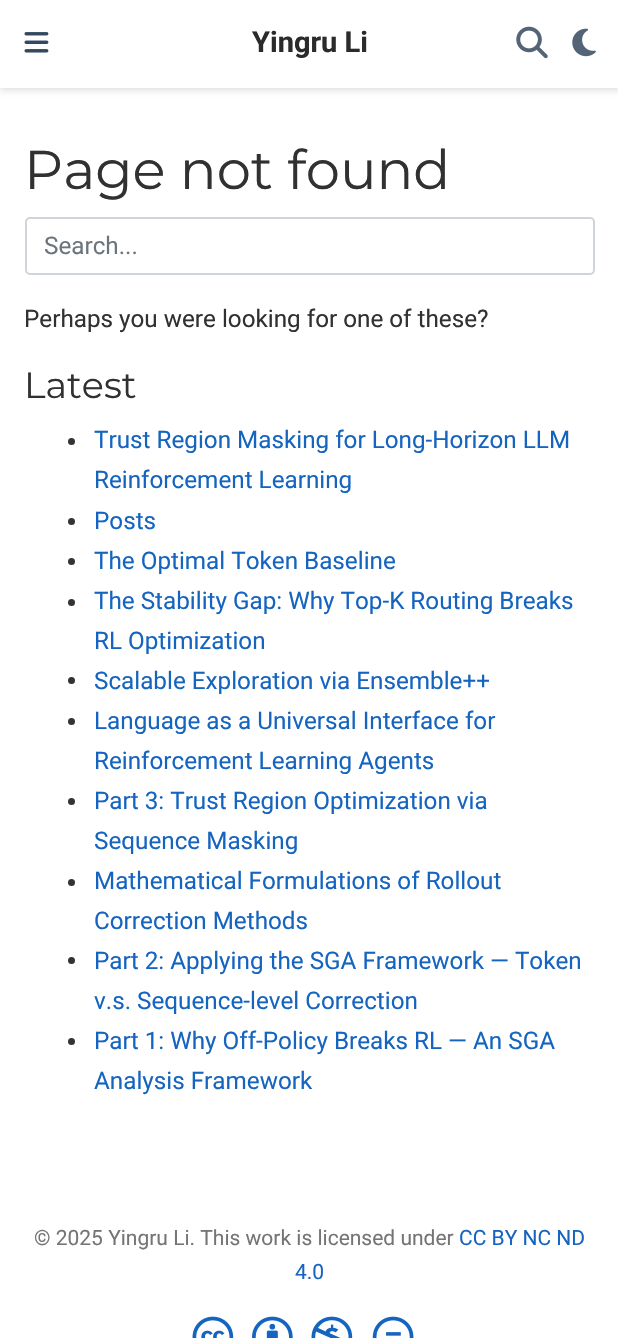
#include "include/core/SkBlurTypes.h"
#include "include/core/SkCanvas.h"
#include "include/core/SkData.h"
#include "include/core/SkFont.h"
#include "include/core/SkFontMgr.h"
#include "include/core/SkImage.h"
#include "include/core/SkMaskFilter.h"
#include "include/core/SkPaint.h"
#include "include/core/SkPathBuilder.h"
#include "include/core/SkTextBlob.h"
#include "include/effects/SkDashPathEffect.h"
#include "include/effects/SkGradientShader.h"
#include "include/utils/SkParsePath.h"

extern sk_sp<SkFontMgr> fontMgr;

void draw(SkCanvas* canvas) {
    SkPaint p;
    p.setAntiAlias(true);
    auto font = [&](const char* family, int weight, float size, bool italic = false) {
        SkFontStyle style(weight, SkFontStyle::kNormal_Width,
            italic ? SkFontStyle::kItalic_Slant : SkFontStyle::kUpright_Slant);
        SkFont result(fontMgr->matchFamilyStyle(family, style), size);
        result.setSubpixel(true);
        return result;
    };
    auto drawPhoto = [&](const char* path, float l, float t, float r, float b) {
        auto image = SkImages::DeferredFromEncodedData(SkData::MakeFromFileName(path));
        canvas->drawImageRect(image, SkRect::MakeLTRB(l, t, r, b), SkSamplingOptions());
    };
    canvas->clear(0xFFFFFFFF);
    p.setColor(0x1C000000);
    p.setMaskFilter(SkMaskFilter::MakeBlur(kNormal_SkBlurStyle, 3));
    canvas->drawRect(SkRect::MakeLTRB(0, 4, 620, 91), p);
    p.setMaskFilter(nullptr);
    p.setColor(0xFFFFFFFF);
    canvas->drawRect(SkRect::MakeLTRB(0, 0, 618, 88), p);
    drawPhoto("media/1.png", 24, 32, 49, 53);
    auto font1 = font("Roboto", 700, 29);
    p.setColor(0xFF2B2B2B);
    canvas->drawString("Yingru Li", 252, 52, font1, p);
    drawPhoto("media/2.png", 516, 26, 548, 59);
    drawPhoto("media/3.png", 572, 28, 596, 57);
    auto font2 = font("Montserrat", 400, 54.5f);
    p.setColor(0xFF313131);
    canvas->drawString("Page not found", 24, 189, font2, p);
    p.setStyle(SkPaint::kStroke_Style);
    p.setStrokeWidth(2);
    p.setColor(0xFFCED4DA);
    canvas->drawRoundRect(SkRect::MakeLTRB(26, 218, 594, 274), 4, 4, p);
    auto font3 = font("Roboto", 400, 24.25f);
    p.setStyle(SkPaint::kFill_Style);
    p.setColor(0xFF6C757D);
    canvas->drawString("Search...", 44, 254, font3, p);
    p.setColor(0xFF313131);
    canvas->drawString("Perhaps you were looking for one of these?", 24, 327, font3, p);
    auto font4 = font("Montserrat", 400, 36.5f);
    canvas->drawString("Latest", 24, 398, font4, p);
    p.setColor(0xFF333333);
    canvas->drawCircle(71.5f, 441.5f, 3.5f, p);
    p.setColor(0xFF1565C0);
    canvas->drawString("Trust Region Masking for Long-Horizon LLM", 94, 448, font3, p);
    canvas->drawString("Reinforcement Learning", 94, 488, font3, p);
    p.setColor(0xFF333333);
    canvas->drawCircle(71.5f, 521.5f, 3.5f, p);
    p.setColor(0xFF1565C0);
    canvas->drawString("Posts", 94, 529, font3, p);
    p.setColor(0xFF333333);
    canvas->drawCircle(71.5f, 561.5f, 3.5f, p);
    p.setColor(0xFF1565C0);
    canvas->drawString("The Optimal Token Baseline", 94, 569, font3, p);
    p.setColor(0xFF333333);
    canvas->drawCircle(71.5f, 602.5f, 3.5f, p);
    p.setColor(0xFF1565C0);
    canvas->drawString("The Stability Gap: Why Top-K Routing Breaks", 94, 609, font3, p);
    canvas->drawString("RL Optimization", 94, 649, font3, p);
    p.setColor(0xFF333333);
    canvas->drawCircle(71.5f, 680.5f, 3.5f, p);
    p.setColor(0xFF1565C0);
    canvas->drawString("Scalable Exploration via Ensemble++", 94, 689, font3, p);
    p.setColor(0xFF333333);
    canvas->drawCircle(71.5f, 721.5f, 3.5f, p);
    p.setColor(0xFF1565C0);
    canvas->drawString("Language as a Universal Interface for", 94, 729, font3, p);
    canvas->drawString("Reinforcement Learning Agents", 94, 769, font3, p);
    p.setColor(0xFF333333);
    canvas->drawCircle(71.5f, 801.5f, 3.5f, p);
    p.setColor(0xFF1565C0);
    canvas->drawString("Part 3: Trust Region Optimization via", 94, 809, font3, p);
    canvas->drawString("Sequence Masking", 94, 849, font3, p);
    p.setColor(0xFF333333);
    canvas->drawCircle(71.5f, 882.5f, 3.5f, p);
    p.setColor(0xFF1565C0);
    canvas->drawString("Mathematical Formulations of Rollout", 94, 889, font3, p);
    canvas->drawString("Correction Methods", 94, 929, font3, p);
    p.setColor(0xFF333333);
    canvas->drawCircle(71.5f, 960.5f, 3.5f, p);
    p.setColor(0xFF1565C0);
    canvas->drawString("Part 2: Applying the SGA Framework — Token", 94, 969, font3, p);
    canvas->drawString("v.s. Sequence-level Correction", 94, 1009, font3, p);
    p.setColor(0xFF333333);
    canvas->drawCircle(71.5f, 1041.5f, 3.5f, p);
    p.setColor(0xFF1565C0);
    canvas->drawString("Part 1: Why Off-Policy Breaks RL — An SGA", 94, 1049, font3, p);
    canvas->drawString("Analysis Framework", 94, 1089, font3, p);
    auto font5 = font("Roboto", 400, 21);
    p.setColor(0xFF757575);
    canvas->drawString("© 2025 Yingru Li. This work is licensed under", 34, 1245, font5, p);
    p.setColor(0xFF1565C0);
    canvas->drawString("CC BY NC ND", 459, 1245, font5, p);
    canvas->drawString("4.0", 295, 1279, font5, p);
    drawPhoto("media/4.png", 192, 1316, 234, 1338);
    drawPhoto("media/5.png", 252, 1316, 293, 1338);
    drawPhoto("media/6.png", 311, 1316, 353, 1338);
    drawPhoto("media/7.png", 372, 1316, 414, 1338);
}
